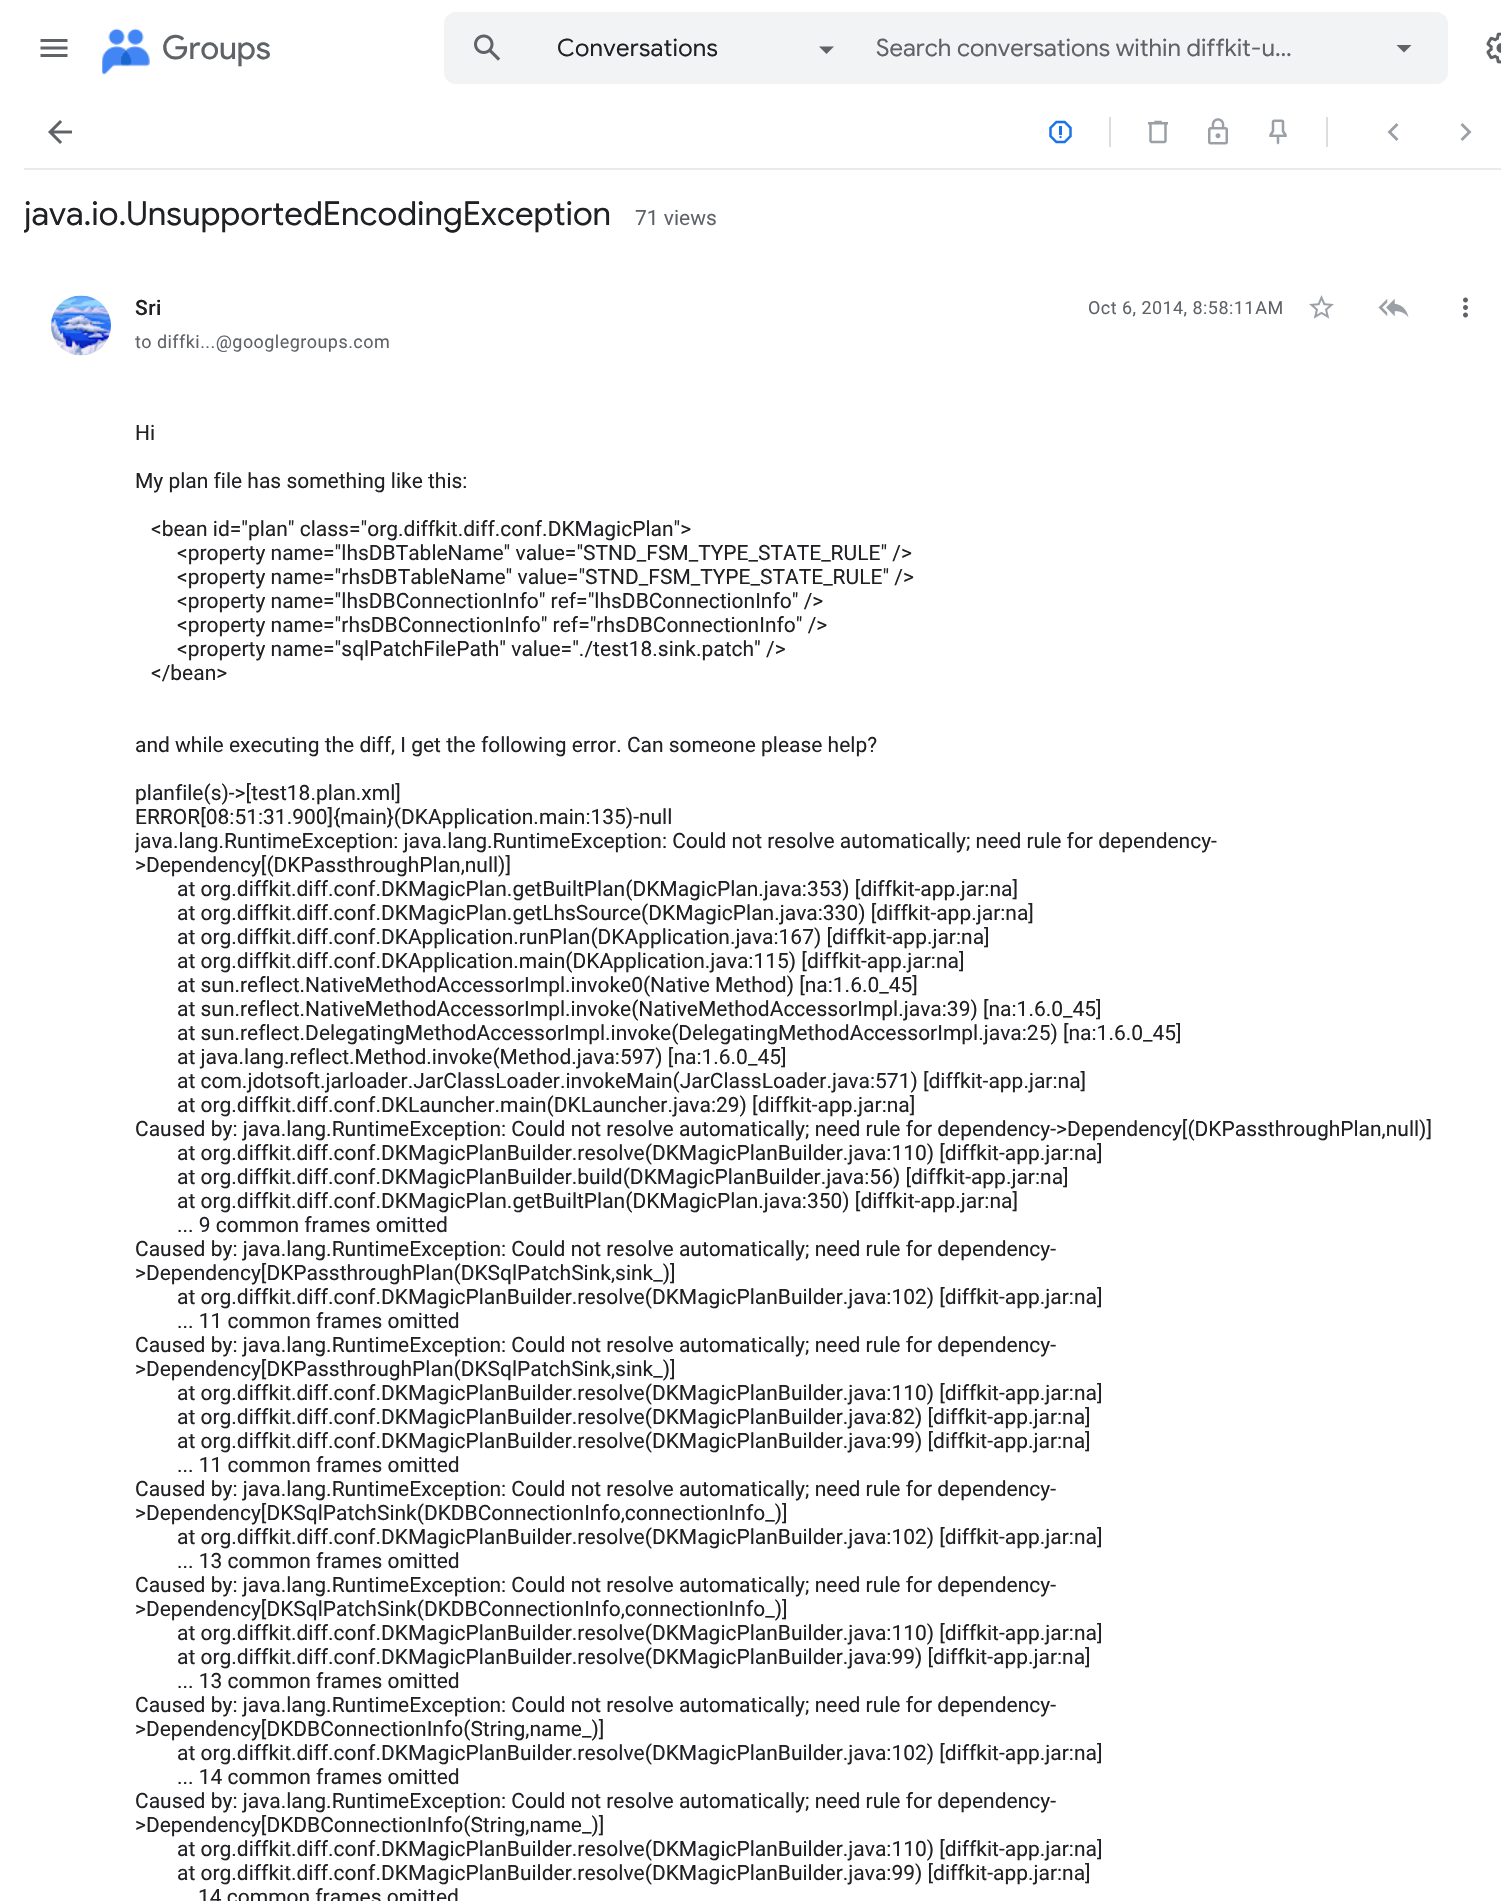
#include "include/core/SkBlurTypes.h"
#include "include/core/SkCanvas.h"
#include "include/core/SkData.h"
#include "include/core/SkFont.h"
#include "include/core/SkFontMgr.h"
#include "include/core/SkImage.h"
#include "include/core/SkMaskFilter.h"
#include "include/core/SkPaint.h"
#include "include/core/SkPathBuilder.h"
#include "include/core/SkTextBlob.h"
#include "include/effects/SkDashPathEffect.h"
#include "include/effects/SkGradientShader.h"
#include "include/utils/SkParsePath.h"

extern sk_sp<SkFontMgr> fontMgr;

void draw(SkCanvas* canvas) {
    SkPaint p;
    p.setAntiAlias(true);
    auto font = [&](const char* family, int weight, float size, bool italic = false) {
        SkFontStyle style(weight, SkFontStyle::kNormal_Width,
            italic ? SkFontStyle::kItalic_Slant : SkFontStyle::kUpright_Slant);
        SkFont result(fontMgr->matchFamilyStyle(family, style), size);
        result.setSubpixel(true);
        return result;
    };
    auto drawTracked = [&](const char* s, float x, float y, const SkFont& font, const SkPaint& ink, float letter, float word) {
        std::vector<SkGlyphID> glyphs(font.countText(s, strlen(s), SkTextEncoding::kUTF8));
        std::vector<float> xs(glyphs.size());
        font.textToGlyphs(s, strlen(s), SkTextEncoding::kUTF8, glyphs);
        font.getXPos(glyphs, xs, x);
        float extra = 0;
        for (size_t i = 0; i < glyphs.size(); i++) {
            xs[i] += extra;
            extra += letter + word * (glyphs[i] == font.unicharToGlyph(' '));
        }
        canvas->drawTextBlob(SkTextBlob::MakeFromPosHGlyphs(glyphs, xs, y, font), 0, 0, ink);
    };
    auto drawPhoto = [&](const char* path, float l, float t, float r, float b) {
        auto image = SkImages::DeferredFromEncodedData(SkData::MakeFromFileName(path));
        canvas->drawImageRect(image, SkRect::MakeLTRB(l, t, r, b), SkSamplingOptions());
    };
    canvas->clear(0xFFFFFFFF);
    drawPhoto("media/1.png", 40, 39, 68, 57);
    drawPhoto("media/2.png", 102, 28, 150, 75);
    auto font1 = font("Product Sans", 400, 33);
    p.setColor(0xFF5F6368);
    canvas->drawString("Groups", 162, 59, font1, p);
    p.setColor(0xFFF1F3F4);
    canvas->drawRoundRect(SkRect::MakeLTRB(444, 12, 1448, 84), 12, 12, p);
    drawPhoto("media/3.png", 474, 34, 501, 61);
    auto font2 = font("Google Sans", 400, 24);
    p.setColor(0xFF202124);
    drawTracked("Conversations", 557, 56, font2, p, 0.25f, 0);
    p.setColor(0xFF5F6368);
    canvas->drawPath(SkPathBuilder().moveTo(819, 46.5f).lineTo(834, 46.5f).lineTo(826.5f, 54).close().detach(), p);
    canvas->drawString("Search conversations within diffkit-u…", 876, 56, font2, p);
    canvas->drawPath(SkPathBuilder().moveTo(1396.5f, 45).lineTo(1404, 52.5f).lineTo(1411.5f, 45).close().detach(), p);
    drawPhoto("media/4.png", 1486, 32, 1501, 64);
    p.setColor(0xFFE8EAED);
    canvas->drawRect(SkRect::MakeLTRB(24, 168, 1501, 170), p);
    drawPhoto("media/5.png", 48, 120, 72, 144);
    drawPhoto("media/6.png", 1049, 120, 1072, 144);
    p.setColor(0xFFDDDDDD);
    canvas->drawRect(SkRect::MakeLTRB(1109, 117, 1111, 147), p);
    drawPhoto("media/7.png", 1148, 120, 1168, 144);
    drawPhoto("media/8.png", 1208, 118, 1228, 145);
    drawPhoto("media/9.png", 1269, 119, 1287, 145);
    canvas->drawRect(SkRect::MakeLTRB(1326, 117, 1328, 147), p);
    p.setColor(0xFF9AA0A6);
    canvas->drawPath(SkPathBuilder().moveTo(1398.5f, 125).lineTo(1391.5f, 132).lineTo(1398.5f, 139).lineTo(1396.5f, 141).lineTo(1387.5f, 132).lineTo(1396.5f, 123).close().detach(), p);
    canvas->drawPath(SkPathBuilder().moveTo(1462.5f, 123).lineTo(1471.5f, 132).lineTo(1462.5f, 141).lineTo(1460.5f, 139).lineTo(1467.5f, 132).lineTo(1460.5f, 125).close().detach(), p);
    canvas->save();
    canvas->clipRect(SkRect::MakeLTRB(24, 170, 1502, 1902));
    auto font3 = font("Google Sans", 400, 33);
    p.setColor(0xFF202124);
    canvas->drawString("java.io.UnsupportedEncodingException", 24, 225, font3, p);
    canvas->restore();
    auto font4 = font("Roboto", 400, 21);
    p.setColor(0xFF5F6368);
    canvas->drawString("71 views", 635, 225, font4, p);
    drawPhoto("media/10.png", 51, 295, 111, 356);
    auto font5 = font("Roboto", 500, 21);
    p.setColor(0xFF202124);
    drawTracked("Sri", 135, 315, font5, p, 0.5f, 0);
    auto font6 = font("Roboto", 400, 18);
    p.setColor(0xFF5F6368);
    drawTracked("Oct 6, 2014, 8:58:11 AM", 1088, 314, font6, p, 0.45f, 0);
    drawPhoto("media/11.png", 1309, 295, 1334, 319);
    drawPhoto("media/12.png", 1378, 299, 1409, 318);
    drawPhoto("media/13.png", 1463, 297, 1468, 318);
    drawTracked("to diffki...@googlegroups.com", 135, 348, font6, p, 0.45f, 0);
    p.setColor(0xFF202124);
    {
        const struct { const char* s; float x, y; } items[] = {
            {"Hi", 135, 440},
            {"My plan file has something like this:", 135, 488},
            {"<bean id=\"plan\" class=\"org.diffkit.diff.conf.DKMagicPlan\">", 151, 536},
            {"<property name=\"lhsDBTableName\" value=\"STND_FSM_TYPE_STATE_RULE\" />", 177, 560},
            {"<property name=\"rhsDBTableName\" value=\"STND_FSM_TYPE_STATE_RULE\" />", 177, 584},
            {"<property name=\"lhsDBConnectionInfo\" ref=\"lhsDBConnectionInfo\" />", 177, 608},
            {"<property name=\"rhsDBConnectionInfo\" ref=\"rhsDBConnectionInfo\" />", 177, 632},
            {"<property name=\"sqlPatchFilePath\" value=\"./test18.sink.patch\" />", 177, 656},
            {"</bean>", 151, 680},
            {"and while executing the diff, I get the following error. Can someone please help?", 135, 752},
            {"planfile(s)->[test18.plan.xml]", 135, 800},
            {"ERROR[08:51:31.900]{main}(DKApplication.main:135)-null", 135, 824},
        };
        for (auto [s, x, y] : items) {
            canvas->drawString(s, x, y, font4, p);
        }
    }
    canvas->save();
    canvas->clipRect(SkRect::MakeLTRB(135, 372, 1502, 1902));
    canvas->drawString("java.lang.RuntimeException: java.lang.RuntimeException: Could not resolve automatically; need rule for dependency-", 135, 848, font4, p);
    canvas->restore();
    {
        const struct { const char* s; float x, y; } items[] = {
            {">Dependency[(DKPassthroughPlan,null)]", 135, 872},
            {"at org.diffkit.diff.conf.DKMagicPlan.getBuiltPlan(DKMagicPlan.java:353) [diffkit-app.jar:na]", 177, 896},
            {"at org.diffkit.diff.conf.DKMagicPlan.getLhsSource(DKMagicPlan.java:330) [diffkit-app.jar:na]", 177, 920},
            {"at org.diffkit.diff.conf.DKApplication.runPlan(DKApplication.java:167) [diffkit-app.jar:na]", 177, 944},
            {"at org.diffkit.diff.conf.DKApplication.main(DKApplication.java:115) [diffkit-app.jar:na]", 177, 968},
            {"at sun.reflect.NativeMethodAccessorImpl.invoke0(Native Method) [na:1.6.0_45]", 177, 992},
            {"at sun.reflect.NativeMethodAccessorImpl.invoke(NativeMethodAccessorImpl.java:39) [na:1.6.0_45]", 177, 1016},
            {"at sun.reflect.DelegatingMethodAccessorImpl.invoke(DelegatingMethodAccessorImpl.java:25) [na:1.6.0_45]", 177, 1040},
            {"at java.lang.reflect.Method.invoke(Method.java:597) [na:1.6.0_45]", 177, 1064},
            {"at com.jdotsoft.jarloader.JarClassLoader.invokeMain(JarClassLoader.java:571) [diffkit-app.jar:na]", 177, 1088},
            {"at org.diffkit.diff.conf.DKLauncher.main(DKLauncher.java:29) [diffkit-app.jar:na]", 177, 1112},
            {"Caused by: java.lang.RuntimeException: Could not resolve automatically; need rule for dependency->Dependency[(DKPassthroughPlan,null)]", 135, 1136},
            {"at org.diffkit.diff.conf.DKMagicPlanBuilder.resolve(DKMagicPlanBuilder.java:110) [diffkit-app.jar:na]", 177, 1160},
            {"at org.diffkit.diff.conf.DKMagicPlanBuilder.build(DKMagicPlanBuilder.java:56) [diffkit-app.jar:na]", 177, 1184},
            {"at org.diffkit.diff.conf.DKMagicPlan.getBuiltPlan(DKMagicPlan.java:350) [diffkit-app.jar:na]", 177, 1208},
            {"... 9 common frames omitted", 177, 1232},
            {"Caused by: java.lang.RuntimeException: Could not resolve automatically; need rule for dependency-", 135, 1256},
            {">Dependency[DKPassthroughPlan(DKSqlPatchSink,sink_)]", 135, 1280},
            {"at org.diffkit.diff.conf.DKMagicPlanBuilder.resolve(DKMagicPlanBuilder.java:102) [diffkit-app.jar:na]", 177, 1304},
            {"... 11 common frames omitted", 177, 1328},
            {"Caused by: java.lang.RuntimeException: Could not resolve automatically; need rule for dependency-", 135, 1352},
            {">Dependency[DKPassthroughPlan(DKSqlPatchSink,sink_)]", 135, 1376},
            {"at org.diffkit.diff.conf.DKMagicPlanBuilder.resolve(DKMagicPlanBuilder.java:110) [diffkit-app.jar:na]", 177, 1400},
            {"at org.diffkit.diff.conf.DKMagicPlanBuilder.resolve(DKMagicPlanBuilder.java:82) [diffkit-app.jar:na]", 177, 1424},
            {"at org.diffkit.diff.conf.DKMagicPlanBuilder.resolve(DKMagicPlanBuilder.java:99) [diffkit-app.jar:na]", 177, 1448},
            {"... 11 common frames omitted", 177, 1472},
            {"Caused by: java.lang.RuntimeException: Could not resolve automatically; need rule for dependency-", 135, 1496},
            {">Dependency[DKSqlPatchSink(DKDBConnectionInfo,connectionInfo_)]", 135, 1520},
            {"at org.diffkit.diff.conf.DKMagicPlanBuilder.resolve(DKMagicPlanBuilder.java:102) [diffkit-app.jar:na]", 177, 1544},
            {"... 13 common frames omitted", 177, 1568},
            {"Caused by: java.lang.RuntimeException: Could not resolve automatically; need rule for dependency-", 135, 1592},
            {">Dependency[DKSqlPatchSink(DKDBConnectionInfo,connectionInfo_)]", 135, 1616},
            {"at org.diffkit.diff.conf.DKMagicPlanBuilder.resolve(DKMagicPlanBuilder.java:110) [diffkit-app.jar:na]", 177, 1640},
            {"at org.diffkit.diff.conf.DKMagicPlanBuilder.resolve(DKMagicPlanBuilder.java:99) [diffkit-app.jar:na]", 177, 1664},
            {"... 13 common frames omitted", 177, 1688},
            {"Caused by: java.lang.RuntimeException: Could not resolve automatically; need rule for dependency-", 135, 1712},
            {">Dependency[DKDBConnectionInfo(String,name_)]", 135, 1736},
            {"at org.diffkit.diff.conf.DKMagicPlanBuilder.resolve(DKMagicPlanBuilder.java:102) [diffkit-app.jar:na]", 177, 1760},
            {"... 14 common frames omitted", 177, 1784},
            {"Caused by: java.lang.RuntimeException: Could not resolve automatically; need rule for dependency-", 135, 1808},
            {">Dependency[DKDBConnectionInfo(String,name_)]", 135, 1832},
            {"at org.diffkit.diff.conf.DKMagicPlanBuilder.resolve(DKMagicPlanBuilder.java:110) [diffkit-app.jar:na]", 177, 1856},
            {"at org.diffkit.diff.conf.DKMagicPlanBuilder.resolve(DKMagicPlanBuilder.java:99) [diffkit-app.jar:na]", 177, 1880},
            {"14 common frames omitted", 198, 1904},
        };
        for (auto [s, x, y] : items) {
            canvas->drawString(s, x, y, font4, p);
        }
    }
}
